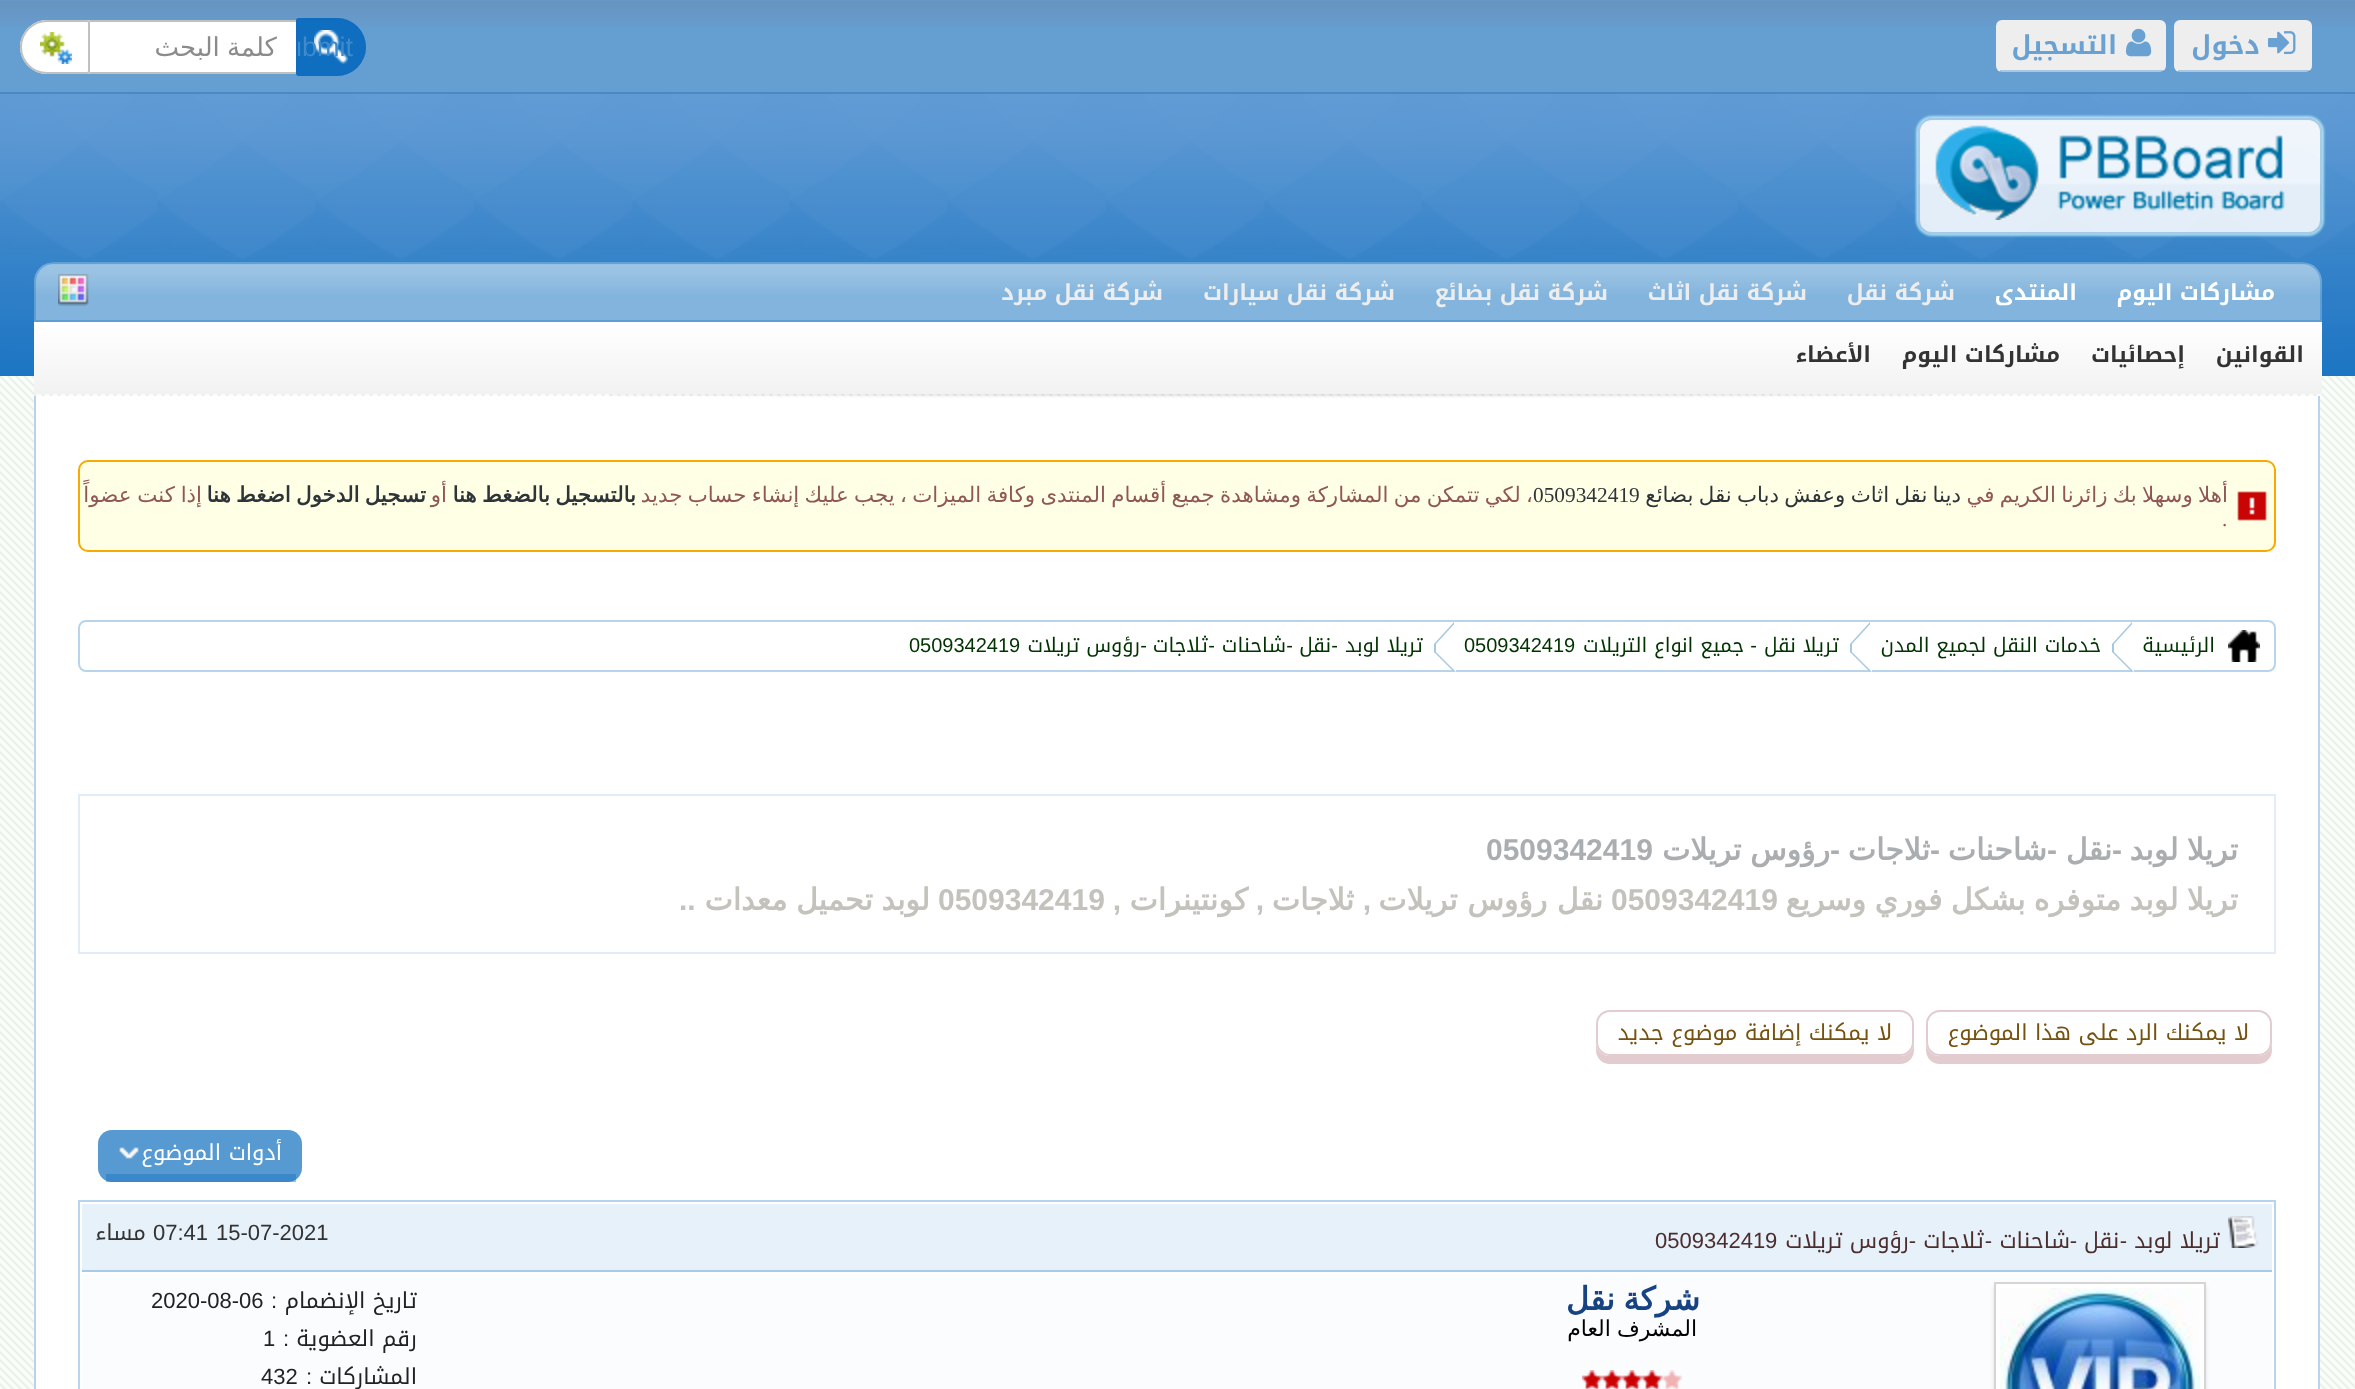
async function draw(canvas) {
	canvas.width = 2355;
	canvas.height = 1389;
	const c = canvas.getContext('2d');
	c.miterLimit = 4;
	c.fontKerning = 'normal';
	async function loadImage(src) {
		const img = new Image();
		img.src = src;
		await img.decode();
		return img;
	}
	let gradient;

	c.fillStyle = '#fff';
	c.fillRect(0, 0, 2355, 1389);
	c.drawImage(await loadImage('img1.png'), 0, 376, 2355, 1013);
	c.fillStyle = '#0f6ebf';
	c.fillRect(0, 0, 2355, 376);
	c.drawImage(await loadImage('img2.png'), 0, 0, 2355, 94);
	c.fillStyle = '#0f6ebf4d';
	c.fillRect(0, 92, 2355, 2);
	c.fillStyle = '#eee';
	c.beginPath();
	c.roundRect(2174, 20, 138, 52, 6);
	c.fill();
	c.fillStyle = '#0f6ebf4d';
	c.fillRect(2178, 70, 132, 2);
	c.drawImage(await loadImage('img3.png'), 2268, 31, 28, 23);
	c.direction = 'rtl';
	c.font = 'bold 26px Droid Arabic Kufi';
	c.fillStyle = '#68a1d2';
	c.fillText('دخول', 2260, 54);
	c.fillStyle = '#eee';
	c.beginPath();
	c.roundRect(1996, 20, 170, 52, 6);
	c.fill();
	c.fillStyle = '#0f6ebf4d';
	c.fillRect(2000, 70, 164, 2);
	c.drawImage(await loadImage('img4.png'), 2126, 28, 26, 29);
	c.fillStyle = '#68a1d2';
	c.fillText('التسجيل', 2117, 54);
	c.fillStyle = '#0f6ebf';
	c.beginPath();
	c.roundRect(296, 18, 70, 58, [3, 29, 29, 3]);
	c.fill();
	c.drawImage(await loadImage('img5.png'), 314, 30, 34, 34);
	c.beginPath();
	c.roundRect(297, 19, 68, 56, [2, 28, 28, 2]);
	c.strokeStyle = '#0f6ebf4d';
	c.lineWidth = 2;
	c.stroke();
	c.save();
	c.beginPath();
	c.roundRect(298, 20, 66, 54, [1, 27, 27, 1]);
	c.clip();
	c.direction = 'ltr';
	c.font = '27px Liberation Sans';
	c.fillStyle = '#3e8acb';
	c.fillText('ubmit', 287, 56);
	c.restore();
	for (const [x, y, w, h, color] of [
		[89, 22, 207, 50, '#fff'],
		[88, 20, 208, 2, '#c0c0c0'],
		[88, 72, 208, 2, '#c0c0c0'],
	]) {
		c.fillStyle = color;
		c.fillRect(x, y, w, h);
	}
	c.wordSpacing = '-1px';
	c.font = '26px DejaVu Sans';
	c.fillStyle = '#8b8b8b';
	c.fillText('كلمة البحث', 277, 56);
	c.fillStyle = '#fff';
	c.beginPath();
	c.roundRect(20, 20, 70, 54, [27, 3, 3, 27]);
	c.fill();
	c.drawImage(await loadImage('img6.png'), 40, 32, 32, 32);
	c.beginPath();
	c.roundRect(21, 21, 68, 52, [26, 2, 2, 26]);
	c.strokeStyle = '#c0c0c0';
	c.stroke();
	c.drawImage(await loadImage('img7.png'), 0, 94, 2355, 282);
	c.save();
	c.beginPath();
	c.moveTo(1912, 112);
	c.lineTo(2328, 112);
	c.lineTo(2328, 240);
	c.lineTo(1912, 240);
	c.closePath();
	c.moveTo(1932, 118);
	c.lineTo(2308, 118);
	c.bezierCurveTo(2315.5, 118, 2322, 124.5, 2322, 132);
	c.lineTo(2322, 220);
	c.bezierCurveTo(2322, 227.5, 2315.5, 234, 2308, 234);
	c.lineTo(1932, 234);
	c.bezierCurveTo(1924.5, 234, 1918, 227.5, 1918, 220);
	c.lineTo(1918, 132);
	c.bezierCurveTo(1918, 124.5, 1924.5, 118, 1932, 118);
	c.closePath();
	c.clip('evenodd');
	c.fillStyle = '#ccffffb3';
	c.filter = 'blur(1px)';
	c.beginPath();
	c.roundRect(1916, 116, 408, 120, 16);
	c.fill();
	c.filter = 'none';
	c.restore();
	c.drawImage(await loadImage('img8.png'), 1918, 118, 404, 116);
	c.beginPath();
	c.roundRect(1919, 119, 402, 114, 13);
	c.strokeStyle = '#0f6ebf4d';
	c.stroke();
	c.fillStyle = '#0f6ebfb3';
	c.beginPath();
	c.roundRect(34, 262, 2288, 60, [20, 20, 0, 0]);
	c.fill();
	c.drawImage(await loadImage('img9.png'), 34, 262, 2288, 60);
	c.beginPath();
	c.roundRect(35, 263, 2286, 58, [19, 19, 0, 0]);
	c.stroke();
	c.wordSpacing = '0px';
	c.font = 'bold 22px Droid Arabic Kufi';
	c.fillStyle = '#fff';
	c.fillText('مشاركات اليوم', 2275, 300);
	c.fillText('المنتدى', 2077, 300);
	c.fillStyle = '#ededed';
	for (const [text, x, y] of [
		['شركة نقل', 1955, 300],
		['شركة نقل اثاث', 1807, 300],
		['شركة نقل بضائع', 1608, 300],
		['شركة نقل سيارات', 1395, 300],
		['شركة نقل مبرد', 1163, 300],
	]) {
		c.fillText(text, x, y);
	}
	c.drawImage(await loadImage('img10.png'), 58, 274, 31, 32);
	gradient = c.createLinearGradient(1178, 322, 1178, 394);
	gradient.addColorStop(0, '#fff');
	gradient.addColorStop(1, '#f2f2f2');
	c.fillStyle = gradient;
	c.fillRect(34, 322, 2288, 72);
	c.fillStyle = '#333';
	for (const [text, x, y] of [
		['القوانين', 2304, 362],
		['إحصائيات', 2185, 362],
		['مشاركات اليوم', 2060, 362],
		['الأعضاء', 1871, 362],
	]) {
		c.fillText(text, x, y);
	}
	c.fillStyle = '#fff';
	c.fillRect(36, 396, 2282, 993);
	c.drawImage(await loadImage('img11.png'), 609, 394, 1324, 4);
	c.fillStyle = '#b7d4ec';
	c.beginPath();
	c.moveTo(2320, 396);
	c.lineTo(2320, 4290);
	c.lineTo(2318, 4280);
	c.lineTo(2318, 396);
	c.closePath();
	c.fill();
	c.beginPath();
	c.moveTo(34, 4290);
	c.lineTo(34, 396);
	c.lineTo(36, 396);
	c.lineTo(36, 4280);
	c.closePath();
	c.fill();
	c.fillStyle = '#ffffe6';
	c.beginPath();
	c.roundRect(78, 460, 2198, 92, 10);
	c.fill();
	c.drawImage(await loadImage('img12.png'), 2237, 491, 30, 30);
	c.beginPath();
	c.roundRect(79, 461, 2196, 90, 9);
	c.strokeStyle = '#f9aa00';
	c.stroke();
	c.wordSpacing = '-1.5px';
	c.font = '21.35px DejaVu Sans';
	c.fillStyle = '#905757';
	c.fillText('أهلا وسهلا بك زائرنا الكريم في', 2228, 502);
	c.fillStyle = '#2e3539';
	c.fillText('دينا نقل اثاث وعفش دباب نقل بضائع', 1961, 502);
	c.wordSpacing = '0px';
	c.direction = 'ltr';
	c.font = '21.35px Liberation Serif';
	c.fillText('0509342419', 1533, 502);
	c.wordSpacing = '-1.5px';
	c.direction = 'rtl';
	c.font = '21.35px DejaVu Sans';
	c.fillStyle = '#905757';
	c.fillText('، لكي تتمكن من المشاركة ومشاهدة جميع أقسام المنتدى وكافة الميزات ، يجب عليك إنشاء حساب جديد', 1533, 502);
	c.font = 'bold 21.35px DejaVu Sans';
	c.fillStyle = '#2e3539';
	c.fillText('بالتسجيل بالضغط هنا', 636, 502);
	c.wordSpacing = '0px';
	c.font = '21.35px DejaVu Sans';
	c.fillStyle = '#905757';
	c.fillText('أو', 447, 502);
	c.wordSpacing = '-1.5px';
	c.font = 'bold 21.35px DejaVu Sans';
	c.fillStyle = '#2e3539';
	c.fillText('تسجيل الدخول اضغط هنا', 426, 502);
	c.wordSpacing = '-1px';
	c.font = '21.35px DejaVu Sans';
	c.fillStyle = '#905757';
	c.fillText('إذا كنت عضواً', 202, 502);
	c.wordSpacing = '0px';
	c.direction = 'ltr';
	c.font = '21.35px Liberation Serif';
	c.fillText('.', 2222, 526);
	c.drawImage(await loadImage('img13.png'), 2228, 630, 32, 32);
	c.beginPath();
	c.roundRect(79, 621, 2196, 50, 7);
	c.strokeStyle = '#b7d4ec';
	c.stroke();
	c.direction = 'rtl';
	c.font = '20px Droid Arabic Kufi';
	c.fillStyle = '#030';
	c.fillText('الرئيسية', 2215, 652);
	c.fillStyle = '#a5c8e0';
	c.beginPath();
	c.moveTo(2132, 622);
	c.lineTo(2132, 672);
	c.lineTo(2112, 652);
	c.lineTo(2112, 644);
	c.closePath();
	c.fill();
	c.fillStyle = '#fff';
	c.beginPath();
	c.moveTo(2134, 622);
	c.lineTo(2134, 672);
	c.lineTo(2114, 652);
	c.lineTo(2114, 644);
	c.closePath();
	c.fill();
	c.fillStyle = '#030';
	c.fillText('خدمات النقل لجميع المدن', 2101, 652);
	c.fillStyle = '#a5c8e0';
	c.beginPath();
	c.moveTo(1870, 622);
	c.lineTo(1870, 672);
	c.lineTo(1850, 652);
	c.lineTo(1850, 644);
	c.closePath();
	c.fill();
	c.fillStyle = '#fff';
	c.beginPath();
	c.moveTo(1872, 622);
	c.lineTo(1872, 672);
	c.lineTo(1852, 652);
	c.lineTo(1852, 644);
	c.closePath();
	c.fill();
	c.fillStyle = '#030';
	c.fillText('تريلا نقل', 1839, 652);
	c.font = '20px Liberation Sans';
	c.fillText('-', 1757, 652);
	c.font = '20px Droid Arabic Kufi';
	c.fillText('جميع انواع التريلات', 1744, 652);
	c.direction = 'ltr';
	c.font = '20px Liberation Sans';
	c.fillText('0509342419', 1464, 652);
	c.fillStyle = '#a5c8e0';
	c.beginPath();
	c.moveTo(1454, 622);
	c.lineTo(1454, 672);
	c.lineTo(1434, 652);
	c.lineTo(1434, 644);
	c.closePath();
	c.fill();
	c.fillStyle = '#fff';
	c.beginPath();
	c.moveTo(1456, 622);
	c.lineTo(1456, 672);
	c.lineTo(1436, 652);
	c.lineTo(1436, 644);
	c.closePath();
	c.fill();
	c.direction = 'rtl';
	c.font = '20px Droid Arabic Kufi';
	c.fillStyle = '#030';
	c.fillText('تريلا لوبد', 1423, 652);
	c.font = '20px Liberation Sans';
	c.fillText('-', 1338, 652);
	c.font = '20px Droid Arabic Kufi';
	c.fillText('نقل', 1331, 652);
	c.font = '20px Liberation Sans';
	c.fillText('-', 1293, 652);
	c.font = '20px Droid Arabic Kufi';
	c.fillText('شاحنات', 1286, 652);
	c.font = '20px Liberation Sans';
	c.fillText('-', 1215, 652);
	c.font = '20px Droid Arabic Kufi';
	c.fillText('ثلاجات', 1208, 652);
	c.font = '20px Liberation Sans';
	c.fillText('-', 1147, 652);
	c.font = '20px Droid Arabic Kufi';
	c.fillText('رؤوس تريلات', 1140, 652);
	c.direction = 'ltr';
	c.font = '20px Liberation Sans';
	c.fillText('0509342419', 909, 652);
	c.strokeStyle = '#e1ecf6';
	c.strokeRect(79, 795, 2196, 158);
	c.wordSpacing = '-1px';
	c.direction = 'rtl';
	c.font = 'bold 30px DejaVu Sans';
	c.fillStyle = '#abaeb0';
	c.fillText('تريلا لوبد', 2238, 860);
	c.wordSpacing = '0px';
	c.font = 'bold 30px Liberation Sans';
	c.fillText('-', 2122, 860);
	c.font = 'bold 30px DejaVu Sans';
	c.fillText('نقل', 2112, 860);
	c.font = 'bold 30px Liberation Sans';
	c.fillText('-', 2057, 860);
	c.font = 'bold 30px DejaVu Sans';
	c.fillText('شاحنات', 2047, 860);
	c.font = 'bold 30px Liberation Sans';
	c.fillText('-', 1940, 860);
	c.font = 'bold 30px DejaVu Sans';
	c.fillText('ثلاجات', 1930, 860);
	c.font = 'bold 30px Liberation Sans';
	c.fillText('-', 1840, 860);
	c.wordSpacing = '-1px';
	c.font = 'bold 30px DejaVu Sans';
	c.fillText('رؤوس تريلات', 1830, 860);
	c.wordSpacing = '0px';
	c.direction = 'ltr';
	c.font = 'bold 30px Liberation Sans';
	c.fillText('0509342419', 1486, 860);
	c.wordSpacing = '-1px';
	c.direction = 'rtl';
	c.font = 'bold 30px DejaVu Sans';
	c.fillStyle = '#c3c2bc';
	c.fillText('تريلا لوبد متوفره بشكل فوري وسريع', 2238, 910);
	c.wordSpacing = '0px';
	c.direction = 'ltr';
	c.font = 'bold 30px Liberation Sans';
	c.fillText('0509342419', 1611, 910);
	c.direction = 'rtl';
	c.font = 'bold 30px DejaVu Sans';
	c.fillText('نقل رؤوس تريلات', 1603, 910);
	c.font = 'bold 30px Liberation Sans';
	c.fillText(',', 1371, 910);
	c.font = 'bold 30px DejaVu Sans';
	c.fillText('ثلاجات', 1354, 910);
	c.font = 'bold 30px Liberation Sans';
	c.fillText(',', 1264, 910);
	c.font = 'bold 30px DejaVu Sans';
	c.fillText('كونتينرات', 1248, 910);
	c.font = 'bold 30px Liberation Sans';
	c.fillText(',', 1121, 910);
	c.direction = 'ltr';
	c.fillText('0509342419', 938, 910);
	c.wordSpacing = '-1px';
	c.direction = 'rtl';
	c.font = 'bold 30px DejaVu Sans';
	c.fillText('لوبد تحميل معدات', 930, 910);
	c.wordSpacing = '0px';
	c.direction = 'ltr';
	c.font = 'bold 30px Liberation Sans';
	c.fillText('..', 679, 910);
	c.fillStyle = '#e2ccd0';
	c.beginPath();
	c.moveTo(1926, 1042);
	c.lineTo(1926, 1050);
	c.bezierCurveTo(1926, 1058, 1932, 1064, 1940, 1064);
	c.lineTo(2258, 1064);
	c.bezierCurveTo(2266, 1064, 2272, 1058, 2272, 1050);
	c.lineTo(2272, 1042);
	c.bezierCurveTo(2272, 1050, 2266, 1056, 2258, 1056);
	c.lineTo(1940, 1056);
	c.bezierCurveTo(1932, 1056, 1926, 1050, 1926, 1042);
	c.closePath();
	c.fill();
	c.fillStyle = '#fff';
	c.beginPath();
	c.roundRect(1927, 1011, 344, 44, 13);
	c.fill();
	c.strokeStyle = '#e2ccd0';
	c.stroke();
	c.direction = 'rtl';
	c.font = '22px Droid Arabic Kufi';
	c.fillStyle = '#75520f';
	c.fillText('لا يمكنك الرد على هذا الموضوع', 2249, 1040);
	c.fillStyle = '#e2ccd0';
	c.beginPath();
	c.moveTo(1596, 1042);
	c.lineTo(1596, 1050);
	c.bezierCurveTo(1596, 1058, 1602, 1064, 1610, 1064);
	c.lineTo(1900, 1064);
	c.bezierCurveTo(1908, 1064, 1914, 1058, 1914, 1050);
	c.lineTo(1914, 1042);
	c.bezierCurveTo(1914, 1050, 1908, 1056, 1900, 1056);
	c.lineTo(1610, 1056);
	c.bezierCurveTo(1602, 1056, 1596, 1050, 1596, 1042);
	c.closePath();
	c.fill();
	c.fillStyle = '#fff';
	c.beginPath();
	c.roundRect(1597, 1011, 316, 44, 13);
	c.fill();
	c.stroke();
	c.fillStyle = '#75520f';
	c.fillText('لا يمكنك إضافة موضوع جديد', 1892, 1040);
	c.fillStyle = '#579ad2';
	c.beginPath();
	c.roundRect(98, 1130, 204, 52, 14);
	c.fill();
	c.fillStyle = '#0f6ebf66';
	c.fillRect(106, 1174, 190, 8);
	c.fillStyle = '#fff';
	c.fillText('أدوات الموضوع', 282, 1160);
	c.drawImage(await loadImage('img14.png'), 119, 1147, 20, 12);
	c.strokeStyle = '#b7d4ec';
	c.strokeRect(79, 1201, 2196, 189);
	c.fillStyle = '#e7f1f9';
	c.fillRect(82, 1204, 2190, 66);
	c.fillStyle = '#a6cae8';
	c.fillRect(82, 1270, 2190, 2);
	c.drawImage(await loadImage('img15.png'), 2228, 1216, 31, 32);
	c.fillStyle = '#4c2e2e';
	c.fillText('تريلا لوبد', 2220, 1248);
	c.font = '22px Liberation Sans';
	c.fillText('-', 2127, 1248);
	c.font = '22px Droid Arabic Kufi';
	c.fillText('نقل', 2119, 1248);
	c.font = '22px Liberation Sans';
	c.fillText('-', 2077, 1248);
	c.font = '22px Droid Arabic Kufi';
	c.fillText('شاحنات', 2070, 1248);
	c.font = '22px Liberation Sans';
	c.fillText('-', 1992, 1248);
	c.font = '22px Droid Arabic Kufi';
	c.fillText('ثلاجات', 1984, 1248);
	c.font = '22px Liberation Sans';
	c.fillText('-', 1916, 1248);
	c.font = '22px Droid Arabic Kufi';
	c.fillText('رؤوس تريلات', 1909, 1248);
	c.direction = 'ltr';
	c.font = '22px Liberation Sans';
	c.fillText('0509342419', 1655, 1248);
	c.fillStyle = '#333';
	c.fillText('15-07-2021', 216, 1240);
	c.fillText('07:41', 153, 1240);
	c.direction = 'rtl';
	c.font = '22px Droid Arabic Kufi';
	c.fillText('مساء', 146, 1240);
	c.fillStyle = '#fafcfe';
	c.fillRect(82, 1274, 2190, 115);
	c.fillStyle = '#0000001a';
	c.filter = 'blur(2px)';
	c.beginPath();
	c.rect(1994, 1286, 212, 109);
	c.fill();
	c.filter = 'none';
	c.fillStyle = '#fff';
	c.beginPath();
	c.rect(1995, 1283, 210, 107);
	c.fill();
	c.strokeStyle = '#d5d5d5';
	c.stroke();
	c.drawImage(await loadImage('img16.png'), 2000, 1288, 200, 101);
	c.wordSpacing = '-2px';
	c.font = 'bold 32px DejaVu Sans';
	c.fillStyle = '#184383';
	c.fillText('شركة نقل', 1700, 1310);
	c.wordSpacing = '-1px';
	c.font = '22px DejaVu Sans';
	c.fillStyle = '#000';
	c.fillText('المشرف العام', 1697, 1336);
	c.drawImage(await loadImage('img17.png'), 1582, 1370, 100, 19);
	c.wordSpacing = '0px';
	c.font = '22px Droid Arabic Kufi';
	c.fillStyle = '#222';
	c.fillText('تاريخ الإنضمام', 417, 1308);
	c.font = '22px Liberation Sans';
	c.fillText(':', 277, 1308);
	c.direction = 'ltr';
	c.fillText('2020-08-06', 151, 1308);
	c.direction = 'rtl';
	c.font = '22px Droid Arabic Kufi';
	c.fillText('رقم العضوية', 417, 1346);
	c.font = '22px Liberation Sans';
	c.fillText(':', 289, 1346);
	c.direction = 'ltr';
	c.fillText('1', 263, 1346);
	c.direction = 'rtl';
	c.font = '22px Droid Arabic Kufi';
	c.fillText('المشاركات', 417, 1384);
	c.font = '22px Liberation Sans';
	c.fillText(':', 312, 1384);
	c.direction = 'ltr';
	c.fillText('432', 261, 1384);
}

draw(document.querySelector('canvas'));
